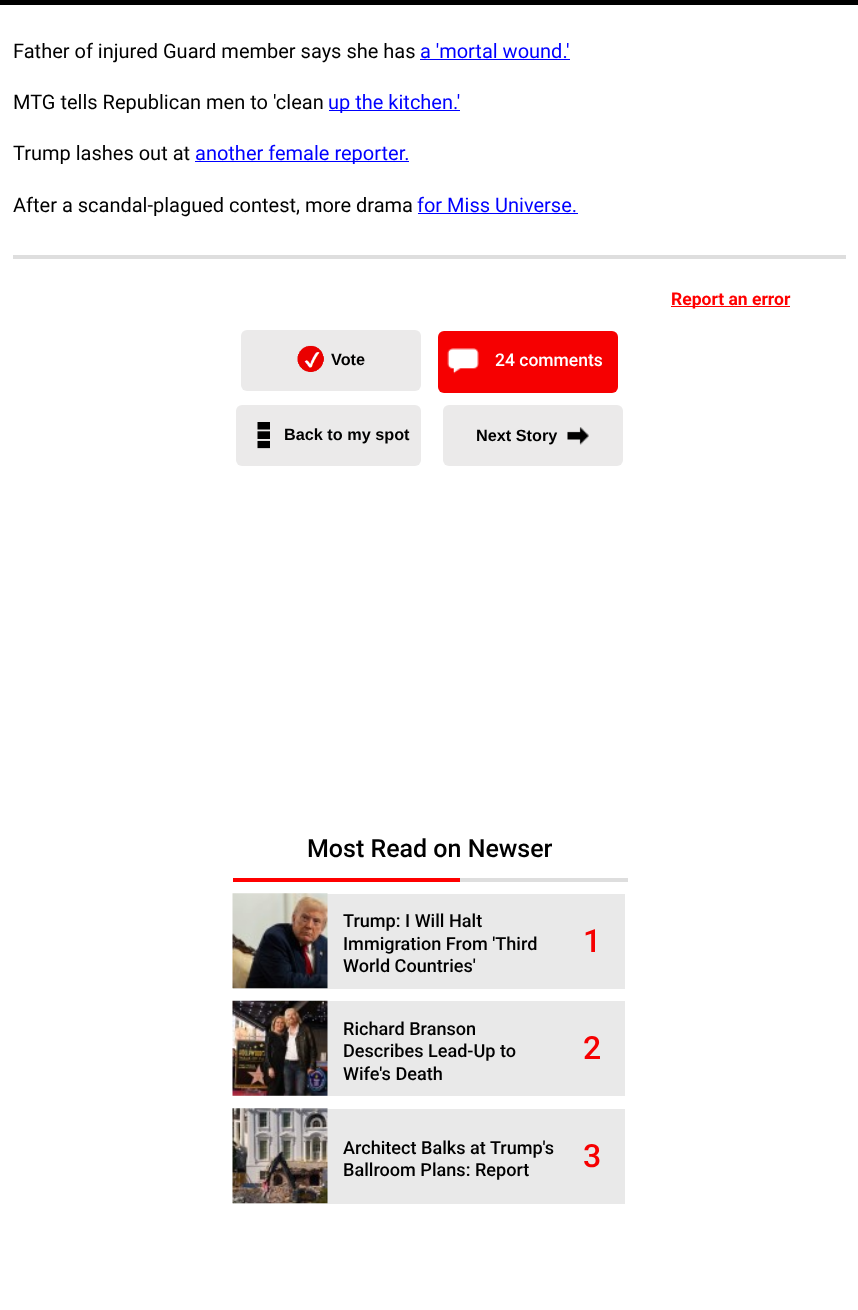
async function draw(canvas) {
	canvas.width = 858;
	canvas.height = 1310;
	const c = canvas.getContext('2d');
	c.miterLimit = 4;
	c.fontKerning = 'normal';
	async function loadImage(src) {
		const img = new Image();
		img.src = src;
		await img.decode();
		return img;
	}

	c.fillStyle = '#fff';
	c.fillRect(0, 0, 858, 1310);
	c.fillStyle = '#000';
	c.fillRect(0, 0, 858, 5);
	c.font = '20px Roboto';
	c.fillText('Father of injured Guard member says she has', 13, 58);
	c.fillStyle = '#00f';
	c.fillText('a \'mortal wound.\'', 420, 58);
	c.fillRect(420, 59, 150, 1);
	c.fillStyle = '#000';
	c.fillText('MTG tells Republican men to \'clean', 13, 109);
	c.fillStyle = '#00f';
	c.fillRect(329, 110, 131, 1);
	c.fillText('up the kitchen.\'', 328, 109);
	c.fillStyle = '#000';
	c.fillText('Trump lashes out at', 13, 160);
	c.fillStyle = '#00f';
	c.fillRect(195, 161, 214, 1);
	c.fillText('another female reporter.', 195, 160);
	c.fillStyle = '#000';
	c.fillText('After a scandal-plagued contest, more drama', 13, 212);
	c.fillStyle = '#00f';
	c.fillText('for Miss Universe.', 417, 212);
	for (const [x, y, w, h, color] of [
		[418, 213, 160, 1, '#00f'],
		[13, 255, 833, 4, '#dedede'],
		[671, 306, 119, 1, '#f00'],
	]) {
		c.fillStyle = color;
		c.fillRect(x, y, w, h);
	}
	c.font = 'bold 17.5px Roboto';
	c.fillText('Report an error', 671, 305);
	c.fillStyle = '#ebeaea';
	c.beginPath();
	c.roundRect(241, 330, 180, 61, 6);
	c.fill();
	c.drawImage(await loadImage('img1.png'), 297, 345, 27, 27);
	c.font = 'bold 16.25px Liberation Sans';
	c.fillStyle = '#000';
	c.fillText('Vote', 331, 365);
	c.fillStyle = '#f60001';
	c.beginPath();
	c.roundRect(438, 331, 180, 62, 6);
	c.fill();
	c.drawImage(await loadImage('img2.png'), 447, 348, 32, 26);
	c.font = '500 17.5px Roboto';
	c.fillStyle = '#fff';
	c.fillText('24 comments', 495, 366);
	c.fillStyle = '#ebeaea';
	c.beginPath();
	c.roundRect(236, 405, 185, 61, 6);
	c.fill();
	c.drawImage(await loadImage('img3.png'), 257, 422, 13, 27);
	c.font = 'bold 16.25px Liberation Sans';
	c.fillStyle = '#000';
	c.fillText('Back to my spot', 284, 440);
	c.fillStyle = '#ebeaea';
	c.beginPath();
	c.roundRect(443, 405, 180, 61, 6);
	c.fill();
	c.fillStyle = '#000';
	c.fillText('Next Story', 476, 441);
	c.drawImage(await loadImage('img4.png'), 567, 427, 22, 18);
	c.font = '500 25px Roboto';
	c.fillText('Most Read on Newser', 307, 857);
	for (const [x, y, w, h, color] of [
		[233, 878, 227, 4, '#f00'],
		[460, 878, 168, 4, '#dedede'],
		[233, 894, 392, 95, '#e9e9e9'],
	]) {
		c.fillStyle = color;
		c.fillRect(x, y, w, h);
	}
	c.drawImage(await loadImage('img5.png'), 232, 893, 96, 96);
	c.font = '500 18.1px Roboto';
	c.fillStyle = '#000';
	for (const [text, x, y] of [
		['Trump: I Will Halt', 343, 927],
		['Immigration From \'Third', 343, 950],
		['World Countries\'', 343, 972],
	]) {
		c.fillText(text, x, y);
	}
	c.font = '500 32px Roboto';
	c.fillStyle = '#f60001';
	c.fillText('1', 583, 952);
	c.fillStyle = '#e9e9e9';
	c.fillRect(233, 1001, 392, 95);
	c.drawImage(await loadImage('img6.png'), 232, 1000, 96, 96);
	c.font = '500 18.1px Roboto';
	c.fillStyle = '#000';
	for (const [text, x, y] of [
		['Richard Branson', 343, 1035],
		['Describes Lead-Up to', 343, 1057],
		['Wife\'s Death', 343, 1080],
	]) {
		c.fillText(text, x, y);
	}
	c.font = '500 32px Roboto';
	c.fillStyle = '#f60001';
	c.fillText('2', 583, 1059);
	c.fillStyle = '#e9e9e9';
	c.fillRect(233, 1109, 392, 95);
	c.drawImage(await loadImage('img7.png'), 232, 1108, 96, 96);
	c.font = '500 18.1px Roboto';
	c.fillStyle = '#000';
	c.fillText('Architect Balks at Trump\'s', 343, 1154);
	c.fillText('Ballroom Plans: Report', 343, 1176);
	c.font = '500 32px Roboto';
	c.fillStyle = '#f60001';
	c.fillText('3', 583, 1167);
}

draw(document.querySelector('canvas'));
